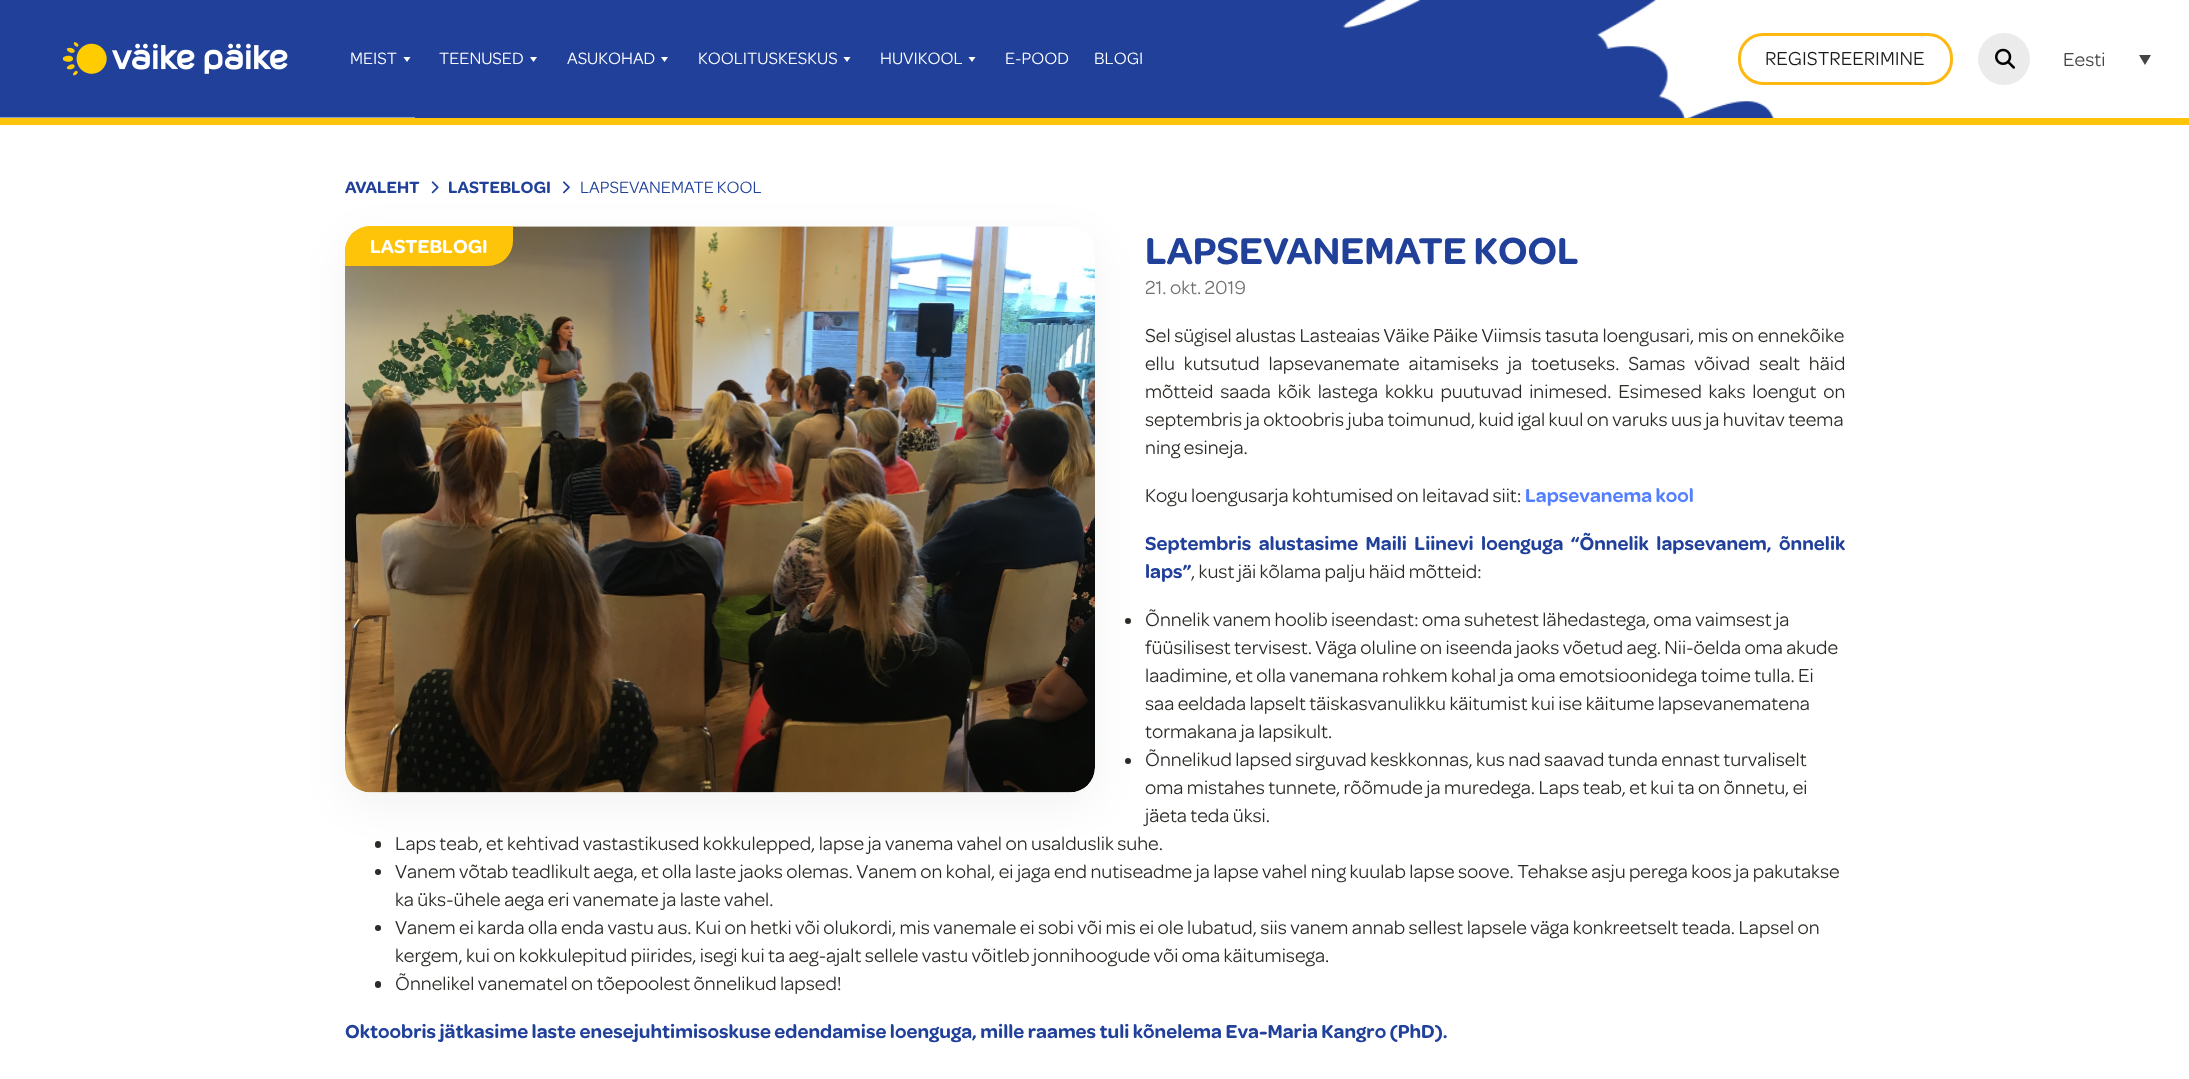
async function draw(canvas) {
	canvas.width = 2189;
	canvas.height = 1079;
	const c = canvas.getContext('2d');
	c.miterLimit = 4;
	c.fontKerning = 'normal';
	async function loadImage(src) {
		const img = new Image();
		img.src = src;
		await img.decode();
		return img;
	}

	c.fillStyle = '#fff';
	c.fillRect(0, 0, 2189, 1079);
	c.drawImage(await loadImage('img1.png'), 0, 0, 1776, 118);
	c.fillStyle = '#fec40a';
	c.fillRect(0, 118, 2189, 7);
	c.drawImage(await loadImage('img2.png'), 63, 42, 225, 34);
	c.font = '17.5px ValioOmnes';
	c.fillStyle = '#fff';
	c.fillText('MEIST', 350, 64);
	c.beginPath();
	c.moveTo(410.5, 57);
	c.lineTo(407, 62);
	c.lineTo(403.5, 57);
	c.closePath();
	c.fill();
	c.fillText('TEENUSED', 439, 64);
	c.beginPath();
	c.moveTo(537, 57);
	c.lineTo(533.5, 62);
	c.lineTo(530, 57);
	c.closePath();
	c.fill();
	c.fillText('ASUKOHAD', 567, 64);
	c.beginPath();
	c.moveTo(668, 57);
	c.lineTo(664.5, 62);
	c.lineTo(661, 57);
	c.closePath();
	c.fill();
	c.fillText('KOOLITUSKESKUS', 698, 64);
	c.beginPath();
	c.moveTo(850.5, 57);
	c.lineTo(847, 62);
	c.lineTo(843.5, 57);
	c.closePath();
	c.fill();
	c.fillText('HUVIKOOL', 880, 64);
	c.beginPath();
	c.moveTo(975.5, 57);
	c.lineTo(972, 62);
	c.lineTo(968.5, 57);
	c.closePath();
	c.fill();
	c.fillText('E-POOD', 1005, 64);
	c.fillText('BLOGI', 1094, 64);
	c.beginPath();
	c.roundRect(1739.5, 34.5, 212, 49, 23.5);
	c.strokeStyle = '#fdb811';
	c.lineWidth = 3;
	c.stroke();
	c.font = '20px ValioOmnes';
	c.fillStyle = '#1a1a1a';
	c.fillText('REGISTREERIMINE', 1765, 65);
	c.fillStyle = '#ebebeb';
	c.beginPath();
	c.arc(2004, 59, 26, 0, 2 * Math.PI);
	c.fill();
	c.drawImage(await loadImage('img3.png'), 1995, 48, 20, 21);
	c.fillStyle = '#444';
	c.fillText('Eesti', 2063, 66);
	c.beginPath();
	c.moveTo(2139, 55);
	c.lineTo(2151, 55);
	c.lineTo(2145, 65);
	c.closePath();
	c.fill();
	c.font = '600 17.5px ValioOmnes';
	c.fillStyle = '#20409a';
	c.fillText('AVALEHT', 345, 193);
	c.drawImage(await loadImage('img4.png'), 431, 181, 8, 13);
	c.fillText('LASTEBLOGI', 448, 193);
	c.drawImage(await loadImage('img5.png'), 563, 181, 7, 13);
	c.font = '17.5px ValioOmnes';
	c.fillText('LAPSEVANEMATE KOOL', 580, 193);
	c.fillStyle = '#2d2b27';
	c.beginPath();
	c.arc(1128, 621, 3, 0, 2 * Math.PI);
	c.fill();
	c.beginPath();
	c.arc(1128, 761, 3, 0, 2 * Math.PI);
	c.fill();
	c.beginPath();
	c.roundRect(375, 841, 6, 7, 3);
	c.fill();
	c.beginPath();
	c.arc(378, 872, 3, 0, 2 * Math.PI);
	c.fill();
	c.fillStyle = '#0000000d';
	c.filter = 'blur(22px)';
	c.beginPath();
	c.roundRect(345, 239, 750, 566, 25);
	c.fill();
	c.filter = 'none';
	c.drawImage(await loadImage('img6.png'), 345, 226, 750, 567);
	c.fillStyle = '#fec40a';
	c.beginPath();
	c.roundRect(345, 226, 168, 40, [25, 0, 25, 0]);
	c.fill();
	c.font = '600 20px ValioOmnes';
	c.fillStyle = '#fff';
	c.fillText('LASTEBLOGI', 370, 253);
	c.font = '600 40px ValioOmnes';
	c.fillStyle = '#20409a';
	c.fillText('LAPSEVANEMATE KOOL', 1145, 264);
	c.font = '20px ValioOmnes';
	c.fillStyle = '#727272';
	c.fillText('21. okt. 2019', 1145, 294);
	c.wordSpacing = '0.25px';
	c.fillStyle = '#2d2b27';
	c.fillText('Sel sügisel alustas Lasteaias Väike Päike Viimsis tasuta loengusari, mis on ennekõike', 1145, 342);
	c.wordSpacing = '5.5px';
	c.fillText('ellu kutsutud lapsevanemate aitamiseks ja toetuseks. Samas võivad sealt häid', 1145, 370);
	c.wordSpacing = '3.4px';
	c.fillText('mõtteid saada kõik lastega kokku puutuvad inimesed. Esimesed kaks loengut on', 1145, 398);
	c.wordSpacing = '0px';
	for (const [text, x, y] of [
		['septembris ja oktoobris juba toimunud, kuid igal kuul on varuks uus ja huvitav teema', 1145, 426],
		['ning esineja.', 1145, 454],
		['Kogu loengusarja kohtumised on leitavad siit:', 1145, 502],
	]) {
		c.fillText(text, x, y);
	}
	c.font = '600 20px ValioOmnes';
	c.fillStyle = '#547fff';
	c.fillText('Lapsevanema kool', 1525, 502);
	c.wordSpacing = '4px';
	c.fillStyle = '#20409a';
	c.fillText('Septembris alustasime Maili Liinevi loenguga “Õnnelik lapsevanem, õnnelik', 1145, 550);
	c.wordSpacing = '0px';
	c.fillText('laps”', 1145, 578);
	c.font = '20px ValioOmnes';
	c.fillStyle = '#2d2b27';
	for (const [text, x, y] of [
		[', kust jäi kõlama palju häid mõtteid:', 1191, 578],
		['Õnnelik vanem hoolib iseendast: oma suhetest lähedastega, oma vaimsest ja', 1145, 626],
		['füüsilisest tervisest. Väga oluline on iseenda jaoks võetud aeg. Nii-öelda oma akude', 1145, 654],
		['laadimine, et olla vanemana rohkem kohal ja oma emotsioonidega toime tulla. Ei', 1145, 682],
		['saa eeldada lapselt täiskasvanulikku käitumist kui ise käitume lapsevanematena', 1145, 710],
		['tormakana ja lapsikult.', 1145, 738],
		['Õnnelikud lapsed sirguvad keskkonnas, kus nad saavad tunda ennast turvaliselt', 1145, 766],
		['oma mistahes tunnete, rõõmude ja muredega. Laps teab, et kui ta on õnnetu, ei', 1145, 794],
		['jäeta teda üksi.', 1145, 822],
		['Laps teab, et kehtivad vastastikused kokkulepped, lapse ja vanema vahel on usalduslik suhe.', 395, 850],
		['Vanem võtab teadlikult aega, et olla laste jaoks olemas. Vanem on kohal, ei jaga end nutiseadme ja lapse vahel ning kuulab lapse soove. Tehakse asju perega koos ja pakutakse', 395, 878],
		['ka üks-ühele aega eri vanemate ja laste vahel.', 395, 906],
	]) {
		c.fillText(text, x, y);
	}
	c.beginPath();
	c.arc(378, 928, 3, 0, 2 * Math.PI);
	c.fill();
	c.fillText('Vanem ei karda olla enda vastu aus. Kui on hetki või olukordi, mis vanemale ei sobi või mis ei ole lubatud, siis vanem annab sellest lapsele väga konkreetselt teada. Lapsel on', 395, 934);
	c.fillText('kergem, kui on kokkulepitud piirides, isegi kui ta aeg-ajalt sellele vastu võitleb jonnihoogude või oma käitumisega.', 395, 962);
	c.beginPath();
	c.roundRect(375, 981, 6, 7, 3);
	c.fill();
	c.fillText('Õnnelikel vanematel on tõepoolest õnnelikud lapsed!', 395, 990);
	c.font = '600 20px ValioOmnes';
	c.fillStyle = '#20409a';
	c.fillText('Oktoobris jätkasime laste enesejuhtimisoskuse edendamise loenguga, mille raames tuli kõnelema Eva-Maria Kangro (PhD).', 345, 1038);
}

draw(document.querySelector('canvas'));
